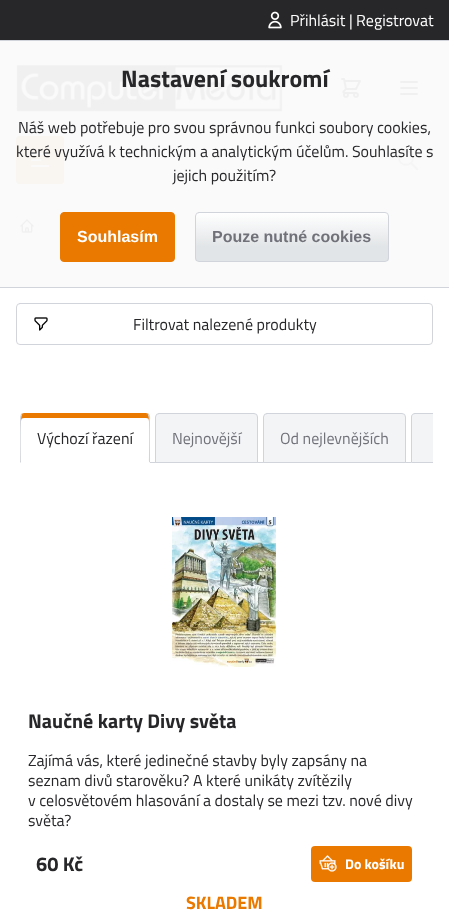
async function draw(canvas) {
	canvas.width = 449;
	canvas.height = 917;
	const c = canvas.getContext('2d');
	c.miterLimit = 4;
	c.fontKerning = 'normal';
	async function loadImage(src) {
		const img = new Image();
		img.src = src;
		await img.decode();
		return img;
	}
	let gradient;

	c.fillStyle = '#fafafa';
	c.fillRect(0, 0, 449, 917);
	c.fillStyle = '#27272a';
	c.fillRect(0, 0, 449, 40);
	c.drawImage(await loadImage('img1.png'), 268, 11, 14, 18);
	c.font = '16px Titillium Web';
	c.fillStyle = '#fff';
	c.fillText('Přihlásit | Registrovat', 290, 26);
	c.drawImage(await loadImage('img2.png'), 16, 64, 267, 48);
	c.drawImage(await loadImage('img3.png'), 341, 78, 20, 20);
	c.beginPath();
	c.moveTo(401, 82);
	c.lineTo(417, 82);
	c.moveTo(401, 88);
	c.lineTo(417, 88);
	c.moveTo(401, 94);
	c.lineTo(417, 94);
	c.strokeStyle = '#f0f0f0';
	c.lineWidth = 2;
	c.lineCap = 'round';
	c.lineJoin = 'round';
	c.stroke();
	c.fillStyle = '#f9f5f0';
	c.beginPath();
	c.roundRect(16, 136, 48, 48, 4);
	c.fill();
	c.beginPath();
	c.moveTo(32, 154);
	c.lineTo(48, 154);
	c.moveTo(32, 160);
	c.lineTo(40, 160);
	c.moveTo(32, 166);
	c.lineTo(48, 166);
	c.strokeStyle = '#fafafa';
	c.stroke();
	c.beginPath();
	c.moveTo(417, 169);
	c.lineTo(411, 163);
	c.moveTo(413, 158);
	c.bezierCurveTo(413, 167, 399, 167, 399, 158);
	c.bezierCurveTo(399, 149, 413, 149, 413, 158);
	c.closePath();
	c.strokeStyle = '#f5f5f5';
	c.stroke();
	c.fillStyle = '#d1d5db';
	c.fillRect(0, 40, 449, 1);
	c.fillRect(0, 287, 449, 1);
	c.font = 'bold 24px Titillium Web';
	c.fillStyle = '#27272a';
	c.fillText('Nastavení soukromí', 121, 87);
	c.font = '16px Titillium Web';
	for (const [text, x, y] of [
		['Náš web potřebuje pro svou správnou funkci soubory cookies,', 18, 133],
		['které využívá k technickým a analytickým účelům. Souhlasíte s', 16, 157],
		['jejich použitím?', 173, 181],
	]) {
		c.fillText(text, x, y);
	}
	c.fillStyle = '#ea7900';
	c.beginPath();
	c.roundRect(60.5, 212.5, 114, 49, 3.5);
	c.fill();
	c.strokeStyle = '#ea7900';
	c.lineWidth = 1;
	c.lineJoin = 'miter';
	c.stroke();
	c.font = 'bold 16px Liberation Sans';
	c.fillStyle = '#fff';
	c.fillText('Souhlasím', 77, 242);
	c.save();
	c.beginPath();
	c.roundRect(195, 212, 194, 50, 4);
	c.clip();
	gradient = c.createLinearGradient(292, 213, 292, 261);
	gradient.addColorStop(0, '#fff');
	gradient.addColorStop(0.7, '#e2e5e7');
	c.fillStyle = gradient;
	c.fillRect(195, 213, 194, 48);
	c.restore();
	c.beginPath();
	c.roundRect(195.5, 212.5, 193, 49, 3.5);
	c.strokeStyle = '#d1d5db';
	c.stroke();
	c.fillStyle = '#71717a';
	c.fillText('Pouze nutné cookies', 212, 242);
	c.fillStyle = '#fff';
	c.fillRect(0, 288, 449, 629);
	c.drawImage(await loadImage('img4.png'), 20, 219, 14, 14);
	c.drawImage(await loadImage('img5.png'), 34, 317, 14, 14);
	c.beginPath();
	c.roundRect(16.5, 303.5, 416, 41, 3.5);
	c.stroke();
	c.font = '16px Titillium Web';
	c.fillStyle = '#27272a';
	c.fillText('Filtrovat nalezené produkty', 133, 330);
	c.fillStyle = '#d1d5db';
	c.fillRect(150, 462, 261, 1);
	c.fillStyle = '#ea7900';
	c.beginPath();
	c.moveTo(24, 418);
	c.lineTo(146, 418);
	c.bezierCurveTo(148, 418, 149, 419, 149, 421);
	c.lineTo(149, 417);
	c.bezierCurveTo(149, 415, 148, 414, 146, 414);
	c.lineTo(24, 414);
	c.bezierCurveTo(22, 414, 21, 415, 21, 417);
	c.lineTo(21, 421);
	c.bezierCurveTo(21, 419, 22, 418, 24, 418);
	c.closePath();
	c.fill();
	c.beginPath();
	c.moveTo(24, 413);
	c.lineTo(21, 414);
	c.lineTo(22, 415);
	c.lineTo(24, 414);
	c.lineTo(146, 414);
	c.lineTo(148, 415);
	c.lineTo(149, 414);
	c.lineTo(146, 413);
	c.closePath();
	c.fill();
	c.fillStyle = '#d1d5db';
	c.beginPath();
	c.moveTo(150, 463);
	c.lineTo(150, 417);
	c.bezierCurveTo(150, 416, 150, 415, 149, 414);
	c.lineTo(148, 415);
	c.bezierCurveTo(150, 417, 149, 456, 149, 462);
	c.closePath();
	c.fill();
	c.fillStyle = '#fff';
	c.beginPath();
	c.moveTo(150, 463);
	c.lineTo(149, 462);
	c.lineTo(21, 462);
	c.lineTo(20, 463);
	c.closePath();
	c.fill();
	c.fillStyle = '#d1d5db';
	c.beginPath();
	c.moveTo(20, 463);
	c.lineTo(21, 462);
	c.bezierCurveTo(21, 456, 20, 417, 22, 415);
	c.lineTo(21, 414);
	c.lineTo(20, 417);
	c.closePath();
	c.fill();
	c.fillStyle = '#27272a';
	c.fillText('Výchozí řazení', 37, 444);
	c.fillStyle = '#f3f4f6';
	c.beginPath();
	c.roundRect(155.5, 413.5, 102, 49, [3.5, 3.5, 0, 0]);
	c.fill();
	c.stroke();
	c.fillStyle = '#71717a';
	c.fillText('Nejnovější', 172, 444);
	c.fillStyle = '#f3f4f6';
	c.beginPath();
	c.roundRect(263.5, 413.5, 142, 49, [3.5, 3.5, 0, 0]);
	c.fill();
	c.stroke();
	c.fillStyle = '#71717a';
	c.fillText('Od nejlevnějších', 280, 444);
	c.fillStyle = '#f3f4f6';
	c.beginPath();
	c.roundRect(411, 413, 22, 50, [4, 0, 0, 0]);
	c.fill();
	c.save();
	c.beginPath();
	c.rect(16, 409, 417, 64);
	c.clip();
	c.beginPath();
	c.moveTo(415, 413.5);
	c.lineTo(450, 413.5);
	c.bezierCurveTo(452, 413.5, 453.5, 415, 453.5, 417);
	c.lineTo(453.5, 462.5);
	c.lineTo(411.5, 462.5);
	c.lineTo(411.5, 417);
	c.bezierCurveTo(411.5, 415, 413, 413.5, 415, 413.5);
	c.closePath();
	c.stroke();
	c.restore();
	c.drawImage(await loadImage('img6.png'), 172, 517, 104, 150);
	c.font = 'bold 20px Titillium Web';
	c.fillStyle = '#27272a';
	c.fillText('Naučné karty Divy světa', 28, 728);
	c.font = '16px Titillium Web';
	for (const [text, x, y] of [
		['Zajímá vás, které jedinečné stavby byly zapsány na', 28, 766],
		['seznam divů starověku? A které unikáty zvítězily', 28, 786],
		['v celosvětovém hlasování a dostaly se mezi tzv. nové divy', 28, 806],
		['světa?', 28, 826],
	]) {
		c.fillText(text, x, y);
	}
	c.font = 'bold 20px Titillium Web';
	c.fillText('60 Kč', 36, 871);
	c.fillStyle = '#ea7900';
	c.beginPath();
	c.roundRect(311, 846, 101, 36, 4);
	c.fill();
	c.drawImage(await loadImage('img7.png'), 319, 855, 18, 17);
	c.font = 'bold 14px Titillium Web';
	c.fillStyle = '#fff';
	c.fillText('Do košíku', 345, 869);
	c.font = 'bold 18px Titillium Web';
	c.fillStyle = '#ea7900';
	c.fillText('SKLADEM', 186, 909);
}

draw(document.querySelector('canvas'));
